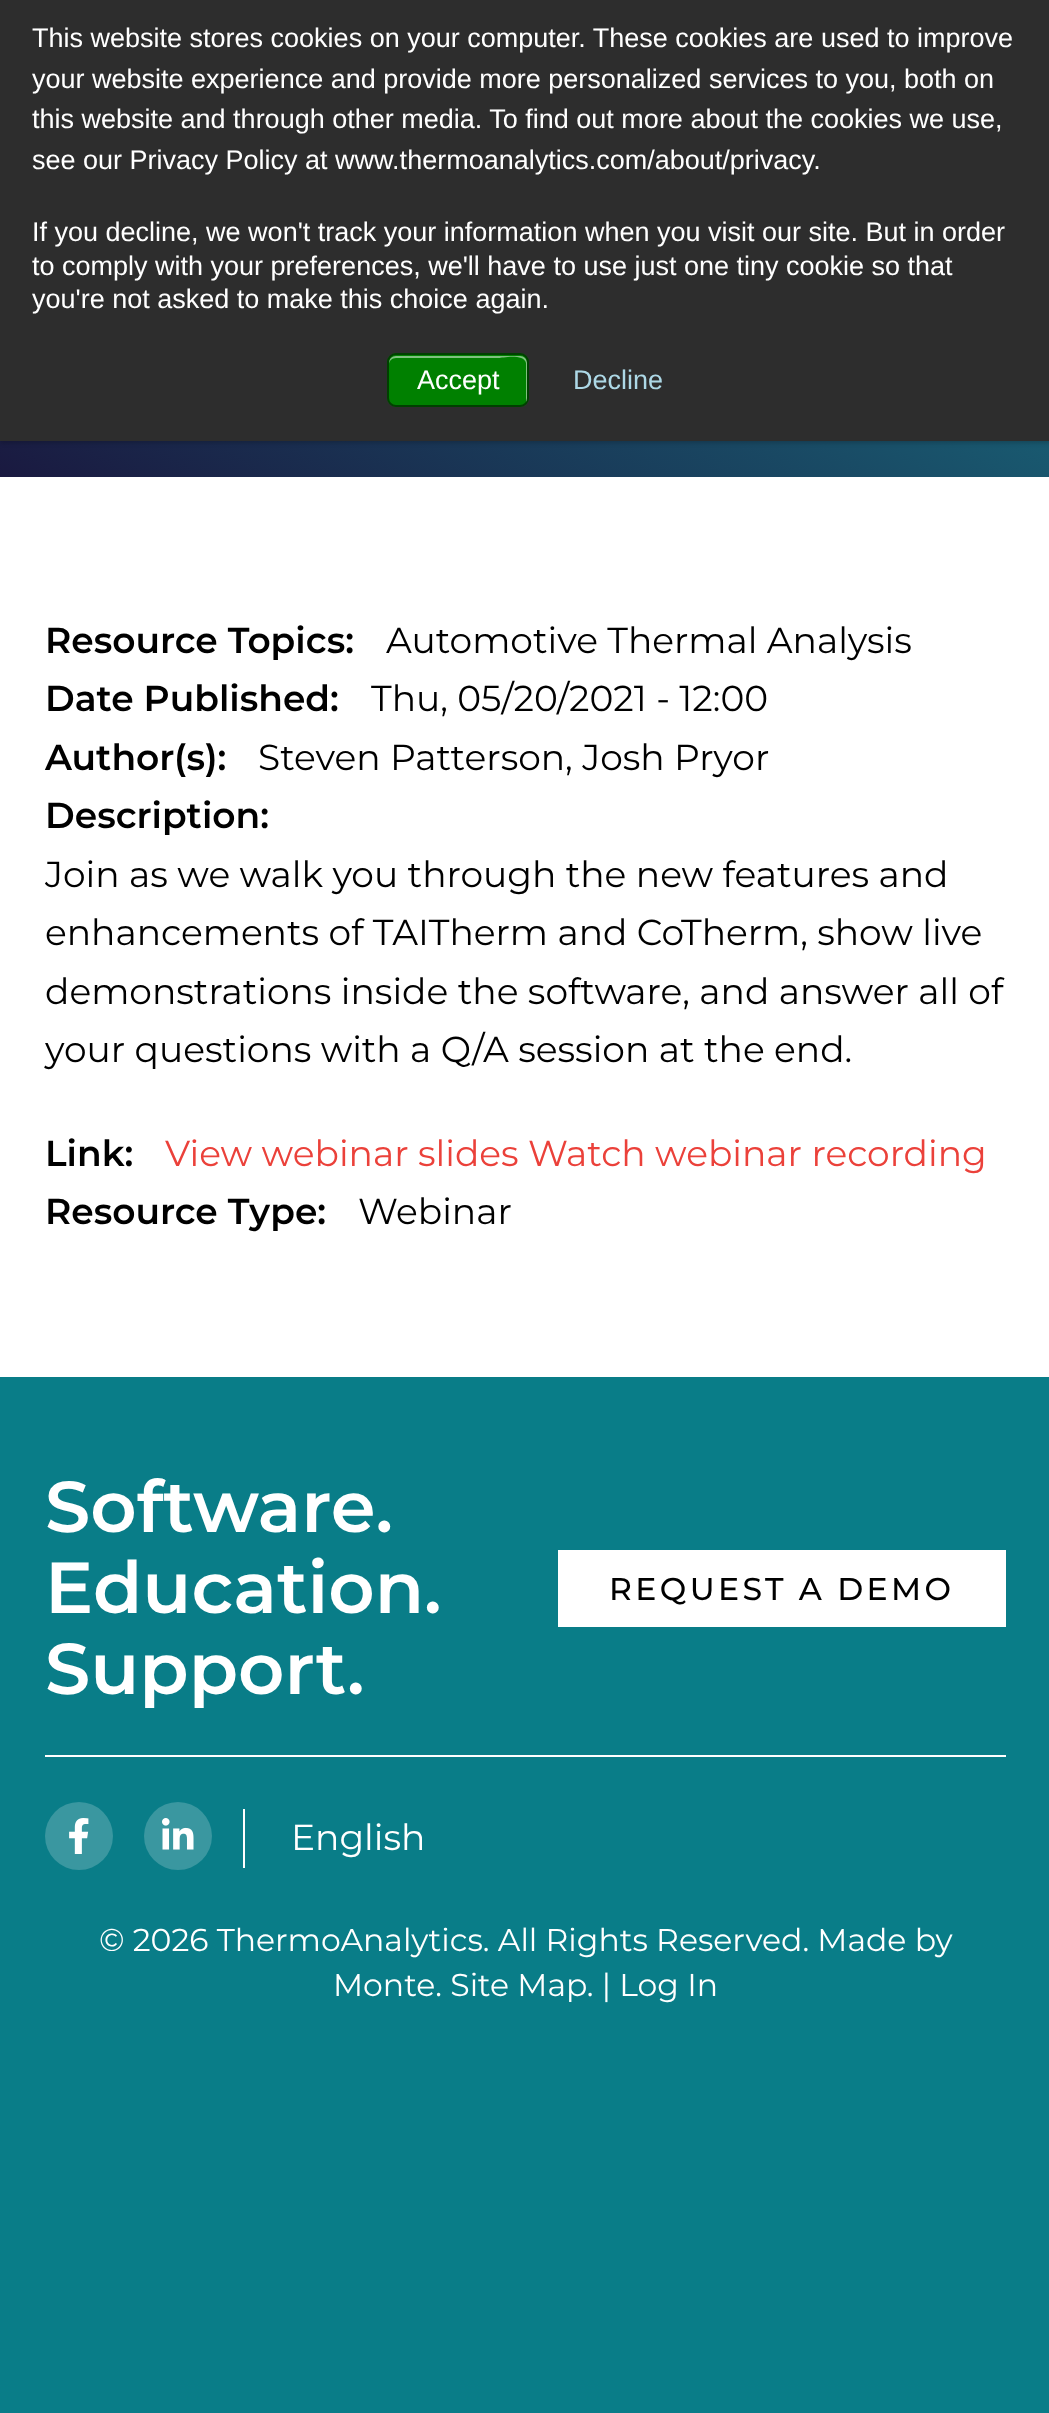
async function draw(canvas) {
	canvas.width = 1049;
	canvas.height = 2413;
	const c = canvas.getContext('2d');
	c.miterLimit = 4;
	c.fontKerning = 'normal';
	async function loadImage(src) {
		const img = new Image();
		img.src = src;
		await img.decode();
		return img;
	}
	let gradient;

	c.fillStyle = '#097d88';
	c.fillRect(0, 0, 1049, 2413);
	gradient = c.createLinearGradient(291, 645, 760, -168);
	gradient.addColorStop(0, '#1a1940');
	gradient.addColorStop(1, '#188691');
	c.fillStyle = gradient;
	c.fillRect(0, 441, 1049, 36);
	c.fillStyle = '#00000033';
	c.filter = 'blur(2px)';
	c.beginPath();
	c.rect(0, 2, 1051, 441);
	c.fill();
	c.filter = 'none';
	c.fillStyle = '#2d2d2d';
	c.fillRect(0, 0, 1049, 441);
	c.font = '27px Liberation Sans';
	c.fillStyle = '#fff';
	for (const [text, x, y] of [
		['This website stores cookies on your computer. These cookies are used to improve', 32, 47],
		['your website experience and provide more personalized services to you, both on', 32, 88],
		['this website and through other media. To find out more about the cookies we use,', 32, 128],
		['see our Privacy Policy at www.thermoanalytics.com/about/privacy.', 32, 169],
		['If you decline, we won\'t track your information when you visit our site. But in order', 32, 241],
		['to comply with your preferences, we\'ll have to use just one tiny cookie so that', 32, 275],
		['you\'re not asked to make this choice again.', 32, 308],
	]) {
		c.fillText(text, x, y);
	}
	c.fillStyle = '#008000';
	c.beginPath();
	c.roundRect(387, 353, 142, 54, 9);
	c.fill();
	c.fillStyle = '#80c080';
	c.beginPath();
	c.moveTo(396, 358);
	c.lineTo(499, 358);
	c.bezierCurveTo(501, 358, 524, 353, 526, 363);
	c.lineTo(526, 402);
	c.bezierCurveTo(527, 401, 527, 399, 527, 398);
	c.lineTo(527, 363);
	c.bezierCurveTo(527, 359, 524, 356, 520, 356);
	c.lineTo(396, 356);
	c.bezierCurveTo(392, 356, 389, 359, 389, 363);
	c.lineTo(389, 364);
	c.bezierCurveTo(389, 361, 392, 358, 396, 358);
	c.closePath();
	c.fill();
	c.beginPath();
	c.roundRect(388, 354, 140, 52, 8);
	c.strokeStyle = '#00000080';
	c.lineWidth = 2;
	c.stroke();
	c.fillStyle = '#fff';
	c.fillText('Accept', 417, 389);
	c.fillStyle = '#add8e6';
	c.fillText('Decline', 573, 389);
	c.fillStyle = '#fff';
	c.fillRect(0, 477, 1049, 900);
	c.font = '600 36px Montserrat';
	c.fillStyle = '#000';
	c.fillText('Resource Topics:', 45, 653);
	c.font = '36px Montserrat';
	c.fillText('Automotive Thermal Analysis', 386, 653);
	c.font = '600 36px Montserrat';
	c.fillText('Date Published:', 45, 711);
	c.font = '36px Montserrat';
	c.fillText('Thu, 05/20/2021 - 12:00', 371, 711);
	c.font = '600 36px Montserrat';
	c.fillText('Author(s):', 45, 770);
	c.font = '36px Montserrat';
	c.fillText('Steven Patterson, Josh Pryor', 258, 770);
	c.font = '600 36px Montserrat';
	c.fillText('Description:', 45, 828);
	c.font = '36px Montserrat';
	for (const [text, x, y] of [
		['Join as we walk you through the new features and', 45, 887],
		['enhancements of TAITherm and CoTherm, show live', 45, 945],
		['demonstrations inside the software, and answer all of', 45, 1004],
		['your questions with a Q/A session at the end.', 45, 1062],
	]) {
		c.fillText(text, x, y);
	}
	c.font = '600 36px Montserrat';
	c.fillText('Link:', 45, 1166);
	c.font = '36px Montserrat';
	c.fillStyle = '#eb413a';
	c.fillText('View webinar slides Watch webinar recording', 165, 1166);
	c.font = '600 36px Montserrat';
	c.fillStyle = '#000';
	c.fillText('Resource Type:', 45, 1224);
	c.font = '36px Montserrat';
	c.fillText('Webinar', 358, 1224);
	c.fillStyle = '#fff';
	c.fillRect(45, 1755, 961, 2);
	c.font = '600 72px Montserrat';
	for (const [text, x, y] of [
		['Software.', 45, 1532],
		['Education.', 45, 1613],
		['Support.', 45, 1694],
	]) {
		c.fillText(text, x, y);
	}
	c.fillRect(558, 1550, 448, 77);
	c.letterSpacing = '3.4px';
	c.font = '500 31.5px Montserrat';
	c.fillStyle = '#000';
	c.fillText('REQUEST A DEMO', 609, 1600);
	c.fillStyle = '#3a97a0';
	c.beginPath();
	c.arc(79, 1836, 34, 0, 2 * Math.PI);
	c.fill();
	c.drawImage(await loadImage('img1.png'), 69, 1818, 20, 36);
	c.beginPath();
	c.arc(178, 1836, 34, 0, 2 * Math.PI);
	c.fill();
	c.drawImage(await loadImage('img2.png'), 162, 1818, 32, 32);
	c.fillStyle = '#fff';
	c.fillRect(243, 1809, 2, 59);
	c.letterSpacing = '0px';
	c.font = '36px Montserrat';
	c.fillText('English', 291, 1850);
	c.font = '31.5px Montserrat';
	c.fillText('© 2026 ThermoAnalytics. All Rights Reserved. Made by', 99, 1951);
	c.fillText('Monte. Site Map. | Log In', 333, 1996);
}

draw(document.querySelector('canvas'));
